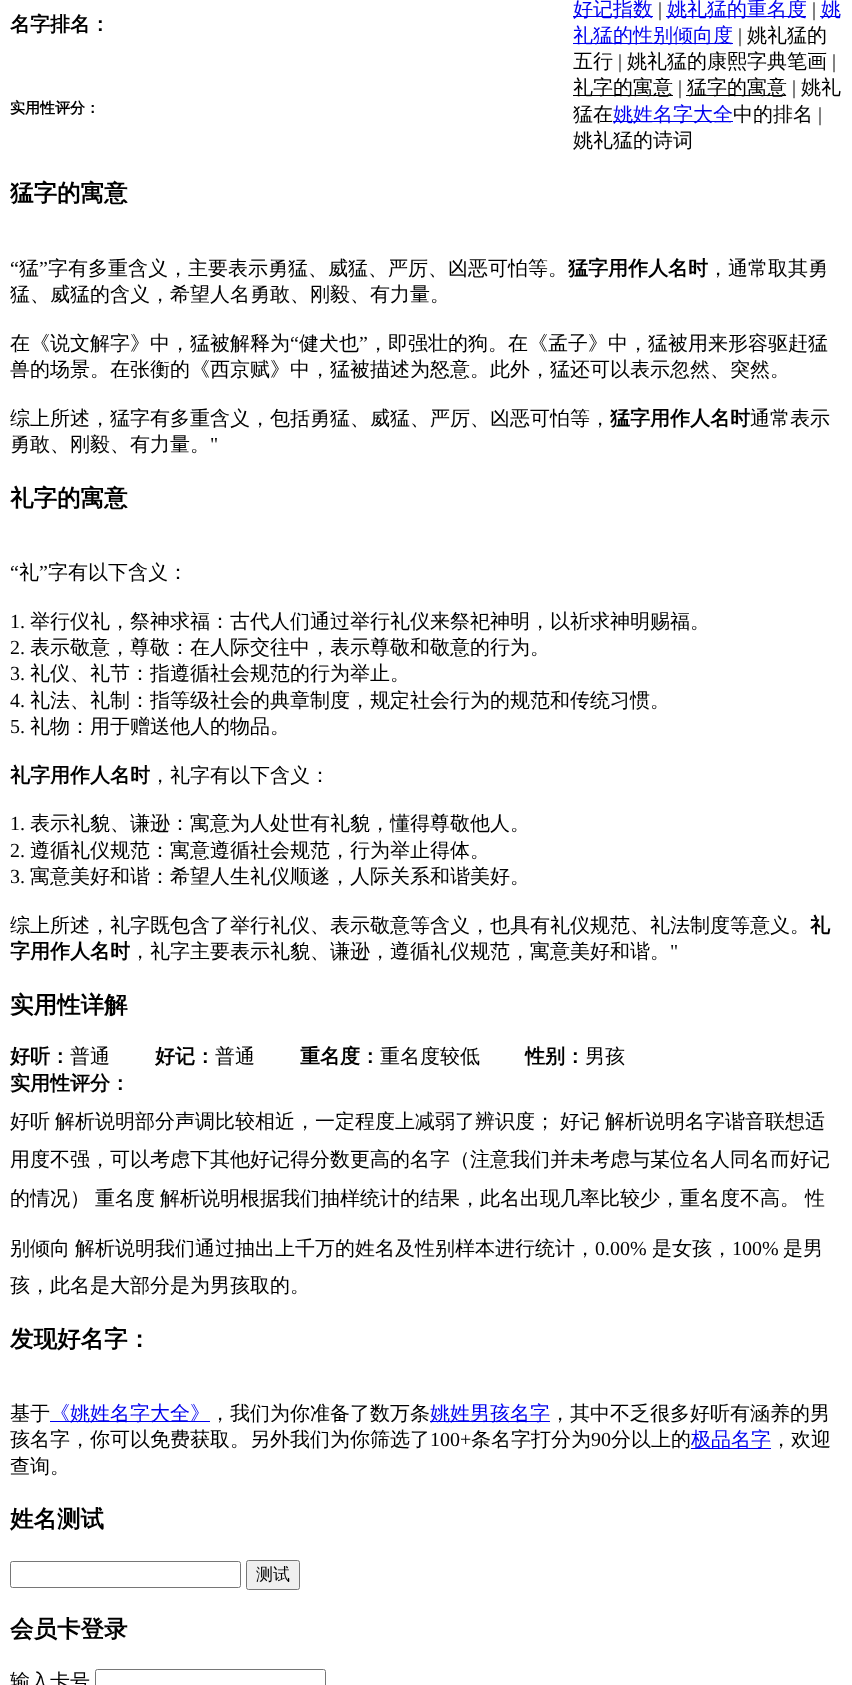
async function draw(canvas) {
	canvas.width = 852;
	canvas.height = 1685;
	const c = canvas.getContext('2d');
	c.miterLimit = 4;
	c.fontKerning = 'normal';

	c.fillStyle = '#fff';
	c.fillRect(0, 0, 852, 1685);
	c.font = 'bold 20px WenQuanYi Zen Hei';
	c.fillStyle = '#000';
	c.fillText('名字排名：', 10, 31);
	c.font = 'bold 15px WenQuanYi Zen Hei';
	c.fillText('实用性评分：', 10, 113);
	c.fillStyle = '#00e';
	c.fillRect(573, 16, 80, 1);
	c.font = '500 20px WenQuanYi Zen Hei';
	c.fillText('好记指数', 573, 16);
	c.font = '20px Liberation Serif';
	c.fillStyle = '#000';
	c.fillText('|', 658, 16);
	c.fillStyle = '#00e';
	c.fillRect(666, 16, 140, 1);
	c.font = '500 20px WenQuanYi Zen Hei';
	c.fillText('姚礼猛的重名度', 667, 16);
	c.font = '20px Liberation Serif';
	c.fillStyle = '#000';
	c.fillText('|', 812, 16);
	c.fillStyle = '#00e';
	c.fillRect(820, 16, 20, 1);
	c.font = '500 20px WenQuanYi Zen Hei';
	c.fillText('姚', 821, 16);
	c.fillRect(573, 43, 160, 1);
	c.fillText('礼猛的性别倾向度', 573, 42);
	c.font = '20px Liberation Serif';
	c.fillStyle = '#000';
	c.fillText('|', 738, 42);
	c.font = '500 20px WenQuanYi Zen Hei';
	c.fillText('姚礼猛的', 747, 42);
	c.fillText('五行', 573, 68);
	c.font = '20px Liberation Serif';
	c.fillText('|', 618, 68);
	c.font = '500 20px WenQuanYi Zen Hei';
	c.fillText('姚礼猛的康熙字典笔画', 627, 68);
	c.font = '20px Liberation Serif';
	c.fillText('|', 832, 68);
	c.fillRect(573, 95, 100, 1);
	c.font = '500 20px WenQuanYi Zen Hei';
	c.fillText('礼字的寓意', 573, 94);
	c.font = '20px Liberation Serif';
	c.fillText('|', 678, 94);
	c.fillRect(686, 95, 100, 1);
	c.font = '500 20px WenQuanYi Zen Hei';
	c.fillText('猛字的寓意', 687, 94);
	c.font = '20px Liberation Serif';
	c.fillText('|', 792, 94);
	c.font = '500 20px WenQuanYi Zen Hei';
	c.fillText('姚礼', 801, 94);
	c.fillText('猛在', 573, 121);
	c.fillStyle = '#00e';
	c.fillRect(613, 121, 120, 1);
	c.fillText('姚姓名字大全', 613, 121);
	c.fillStyle = '#000';
	c.fillText('中的排名', 733, 121);
	c.font = '20px Liberation Serif';
	c.fillText('|', 818, 121);
	c.font = '500 20px WenQuanYi Zen Hei';
	c.fillText('姚礼猛的诗词', 573, 147);
	c.font = 'bold 23.5px WenQuanYi Zen Hei';
	c.fillText('猛字的寓意', 10, 201);
	c.font = '20px Liberation Serif';
	c.fillText('“', 10, 275);
	c.font = '500 20px WenQuanYi Zen Hei';
	c.fillText('猛', 19, 275);
	c.font = '20px Liberation Serif';
	c.fillText('”', 39, 275);
	c.font = '500 20px WenQuanYi Zen Hei';
	c.fillText('字有多重含义，主要表示勇猛、威猛、严厉、凶恶可怕等。', 48, 275);
	c.font = 'bold 20px WenQuanYi Zen Hei';
	c.fillText('猛字用作人名时', 568, 275);
	c.font = '500 20px WenQuanYi Zen Hei';
	for (const [text, x, y] of [
		['，通常取其勇', 708, 275],
		['猛、威猛的含义，希望人名勇敢、刚毅、有力量。', 10, 301],
		['在《说文解字》中，猛被解释为', 10, 350],
	]) {
		c.fillText(text, x, y);
	}
	c.font = '20px Liberation Serif';
	c.fillText('“', 290, 350);
	c.font = '500 20px WenQuanYi Zen Hei';
	c.fillText('健犬也', 299, 350);
	c.font = '20px Liberation Serif';
	c.fillText('”', 359, 350);
	c.font = '500 20px WenQuanYi Zen Hei';
	for (const [text, x, y] of [
		['，即强壮的狗。在《孟子》中，猛被用来形容驱赶猛', 368, 350],
		['兽的场景。在张衡的《西京赋》中，猛被描述为怒意。此外，猛还可以表示忽然、突然。', 10, 376],
		['综上所述，猛字有多重含义，包括勇猛、威猛、严厉、凶恶可怕等，', 10, 425],
	]) {
		c.fillText(text, x, y);
	}
	c.font = 'bold 20px WenQuanYi Zen Hei';
	c.fillText('猛字用作人名时', 610, 425);
	c.font = '500 20px WenQuanYi Zen Hei';
	c.fillText('通常表示', 750, 425);
	c.fillText('勇敢、刚毅、有力量。', 10, 451);
	c.font = '20px Liberation Serif';
	c.fillText('"', 210, 451);
	c.font = 'bold 23.5px WenQuanYi Zen Hei';
	c.fillText('礼字的寓意', 10, 506);
	c.font = '20px Liberation Serif';
	c.fillText('“', 10, 579);
	c.font = '500 20px WenQuanYi Zen Hei';
	c.fillText('礼', 19, 579);
	c.font = '20px Liberation Serif';
	c.fillText('”', 39, 579);
	c.font = '500 20px WenQuanYi Zen Hei';
	c.fillText('字有以下含义：', 48, 579);
	c.font = '20px Liberation Serif';
	c.fillText('1.', 10, 628);
	c.font = '500 20px WenQuanYi Zen Hei';
	c.fillText('举行仪礼，祭神求福：古代人们通过举行礼仪来祭祀神明，以祈求神明赐福。', 30, 628);
	c.font = '20px Liberation Serif';
	c.fillText('2.', 10, 654);
	c.font = '500 20px WenQuanYi Zen Hei';
	c.fillText('表示敬意，尊敬：在人际交往中，表示尊敬和敬意的行为。', 30, 654);
	c.font = '20px Liberation Serif';
	c.fillText('3.', 10, 680);
	c.font = '500 20px WenQuanYi Zen Hei';
	c.fillText('礼仪、礼节：指遵循社会规范的行为举止。', 30, 680);
	c.font = '20px Liberation Serif';
	c.fillText('4.', 10, 707);
	c.font = '500 20px WenQuanYi Zen Hei';
	c.fillText('礼法、礼制：指等级社会的典章制度，规定社会行为的规范和传统习惯。', 30, 707);
	c.font = '20px Liberation Serif';
	c.fillText('5.', 10, 733);
	c.font = '500 20px WenQuanYi Zen Hei';
	c.fillText('礼物：用于赠送他人的物品。', 30, 733);
	c.font = 'bold 20px WenQuanYi Zen Hei';
	c.fillText('礼字用作人名时', 10, 782);
	c.font = '500 20px WenQuanYi Zen Hei';
	c.fillText('，礼字有以下含义：', 150, 782);
	c.font = '20px Liberation Serif';
	c.fillText('1.', 10, 830);
	c.font = '500 20px WenQuanYi Zen Hei';
	c.fillText('表示礼貌、谦逊：寓意为人处世有礼貌，懂得尊敬他人。', 30, 830);
	c.font = '20px Liberation Serif';
	c.fillText('2.', 10, 857);
	c.font = '500 20px WenQuanYi Zen Hei';
	c.fillText('遵循礼仪规范：寓意遵循社会规范，行为举止得体。', 30, 857);
	c.font = '20px Liberation Serif';
	c.fillText('3.', 10, 883);
	c.font = '500 20px WenQuanYi Zen Hei';
	c.fillText('寓意美好和谐：希望人生礼仪顺遂，人际关系和谐美好。', 30, 883);
	c.fillText('综上所述，礼字既包含了举行礼仪、表示敬意等含义，也具有礼仪规范、礼法制度等意义。', 10, 932);
	c.font = 'bold 20px WenQuanYi Zen Hei';
	c.fillText('礼', 810, 932);
	c.fillText('字用作人名时', 10, 958);
	c.font = '500 20px WenQuanYi Zen Hei';
	c.fillText('，礼字主要表示礼貌、谦逊，遵循礼仪规范，寓意美好和谐。', 130, 958);
	c.font = '20px Liberation Serif';
	c.fillText('"', 670, 958);
	c.font = 'bold 23.5px WenQuanYi Zen Hei';
	c.fillText('实用性详解', 10, 1013);
	c.font = 'bold 20px WenQuanYi Zen Hei';
	c.fillText('好听：', 10, 1063);
	c.font = '500 20px WenQuanYi Zen Hei';
	c.fillText('普通', 70, 1063);
	c.font = 'bold 20px WenQuanYi Zen Hei';
	c.fillText('好记：', 155, 1063);
	c.font = '500 20px WenQuanYi Zen Hei';
	c.fillText('普通', 215, 1063);
	c.font = 'bold 20px WenQuanYi Zen Hei';
	c.fillText('重名度：', 300, 1063);
	c.font = '500 20px WenQuanYi Zen Hei';
	c.fillText('重名度较低', 380, 1063);
	c.font = 'bold 20px WenQuanYi Zen Hei';
	c.fillText('性别：', 525, 1063);
	c.font = '500 20px WenQuanYi Zen Hei';
	c.fillText('男孩', 585, 1063);
	c.font = 'bold 20px WenQuanYi Zen Hei';
	c.fillText('实用性评分：', 10, 1090);
	c.wordSpacing = '-1px';
	c.font = '500 20px WenQuanYi Zen Hei';
	c.fillText('好听 解析说明', 10, 1128);
	c.wordSpacing = '0px';
	c.fillText('部分声调比较相近，一定程度上减弱了辨识度；', 135, 1128);
	c.wordSpacing = '-1px';
	c.fillText('好记 解析说明', 560, 1128);
	c.wordSpacing = '0px';
	for (const [text, x, y] of [
		['名字谐音联想适', 685, 1128],
		['用度不强，可以考虑下其他好记得分数更高的名字（注意我们并未考虑与某位名人同名而好记', 10, 1166],
		['的情况）', 10, 1205],
	]) {
		c.fillText(text, x, y);
	}
	c.wordSpacing = '-1px';
	c.fillText('重名度 解析说明', 95, 1205);
	c.wordSpacing = '0px';
	c.fillText('根据我们抽样统计的结果，此名出现几率比较少，重名度不高。', 240, 1205);
	c.fillText('性', 805, 1205);
	c.wordSpacing = '-1px';
	c.fillText('别倾向 解析说明', 10, 1255);
	c.wordSpacing = '0px';
	c.fillText('我们通过抽出上千万的姓名及性别样本进行统计，', 155, 1255);
	c.font = '20px Liberation Serif';
	c.fillText('0.00%', 595, 1255);
	c.font = '500 20px WenQuanYi Zen Hei';
	c.fillText('是女孩，', 652, 1255);
	c.font = '20px Liberation Serif';
	c.fillText('100%', 732, 1255);
	c.font = '500 20px WenQuanYi Zen Hei';
	c.fillText('是男', 783, 1255);
	c.fillText('孩，此名是大部分是为男孩取的。', 10, 1292);
	c.font = 'bold 23.5px WenQuanYi Zen Hei';
	c.fillText('发现好名字：', 10, 1347);
	c.font = '500 20px WenQuanYi Zen Hei';
	c.fillText('基于', 10, 1420);
	c.fillStyle = '#00e';
	c.fillRect(50, 1421, 160, 1);
	c.fillText('《姚姓名字大全》', 50, 1420);
	c.fillStyle = '#000';
	c.fillText('，我们为你准备了数万条', 210, 1420);
	c.fillStyle = '#00e';
	c.fillRect(430, 1421, 120, 1);
	c.fillText('姚姓男孩名字', 430, 1420);
	c.fillStyle = '#000';
	c.fillText('，其中不乏很多好听有涵养的男', 550, 1420);
	c.fillText('孩名字，你可以免费获取。另外我们为你筛选了', 10, 1446);
	c.font = '20px Liberation Serif';
	c.fillText('100+', 430, 1446);
	c.font = '500 20px WenQuanYi Zen Hei';
	c.fillText('条名字打分为', 471, 1446);
	c.font = '20px Liberation Serif';
	c.fillText('90', 591, 1446);
	c.font = '500 20px WenQuanYi Zen Hei';
	c.fillText('分以上的', 611, 1446);
	c.fillStyle = '#00e';
	c.fillRect(691, 1448, 80, 1);
	c.fillText('极品名字', 691, 1446);
	c.fillStyle = '#000';
	c.fillText('，欢迎', 771, 1446);
	c.fillText('查询。', 10, 1473);
	c.font = 'bold 23.5px WenQuanYi Zen Hei';
	c.fillText('姓名测试', 10, 1527);
	c.beginPath();
	c.roundRect(10.5, 1561.5, 230, 26, 2);
	c.strokeStyle = '#767676';
	c.stroke();
	c.fillStyle = '#efefef';
	c.beginPath();
	c.roundRect(246.5, 1560.5, 53, 29, 2);
	c.fill();
	c.stroke();
	c.font = '500 17px WenQuanYi Zen Hei';
	c.fillStyle = '#000';
	c.fillText('测试', 256, 1580);
	c.font = 'bold 23.5px WenQuanYi Zen Hei';
	c.fillText('会员卡登录', 10, 1637);
	c.font = '500 20px WenQuanYi Zen Hei';
	c.fillText('输入卡号', 10, 1688);
	c.beginPath();
	c.roundRect(95.5, 1669.5, 230, 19, 2);
	c.stroke();
}

draw(document.querySelector('canvas'));
